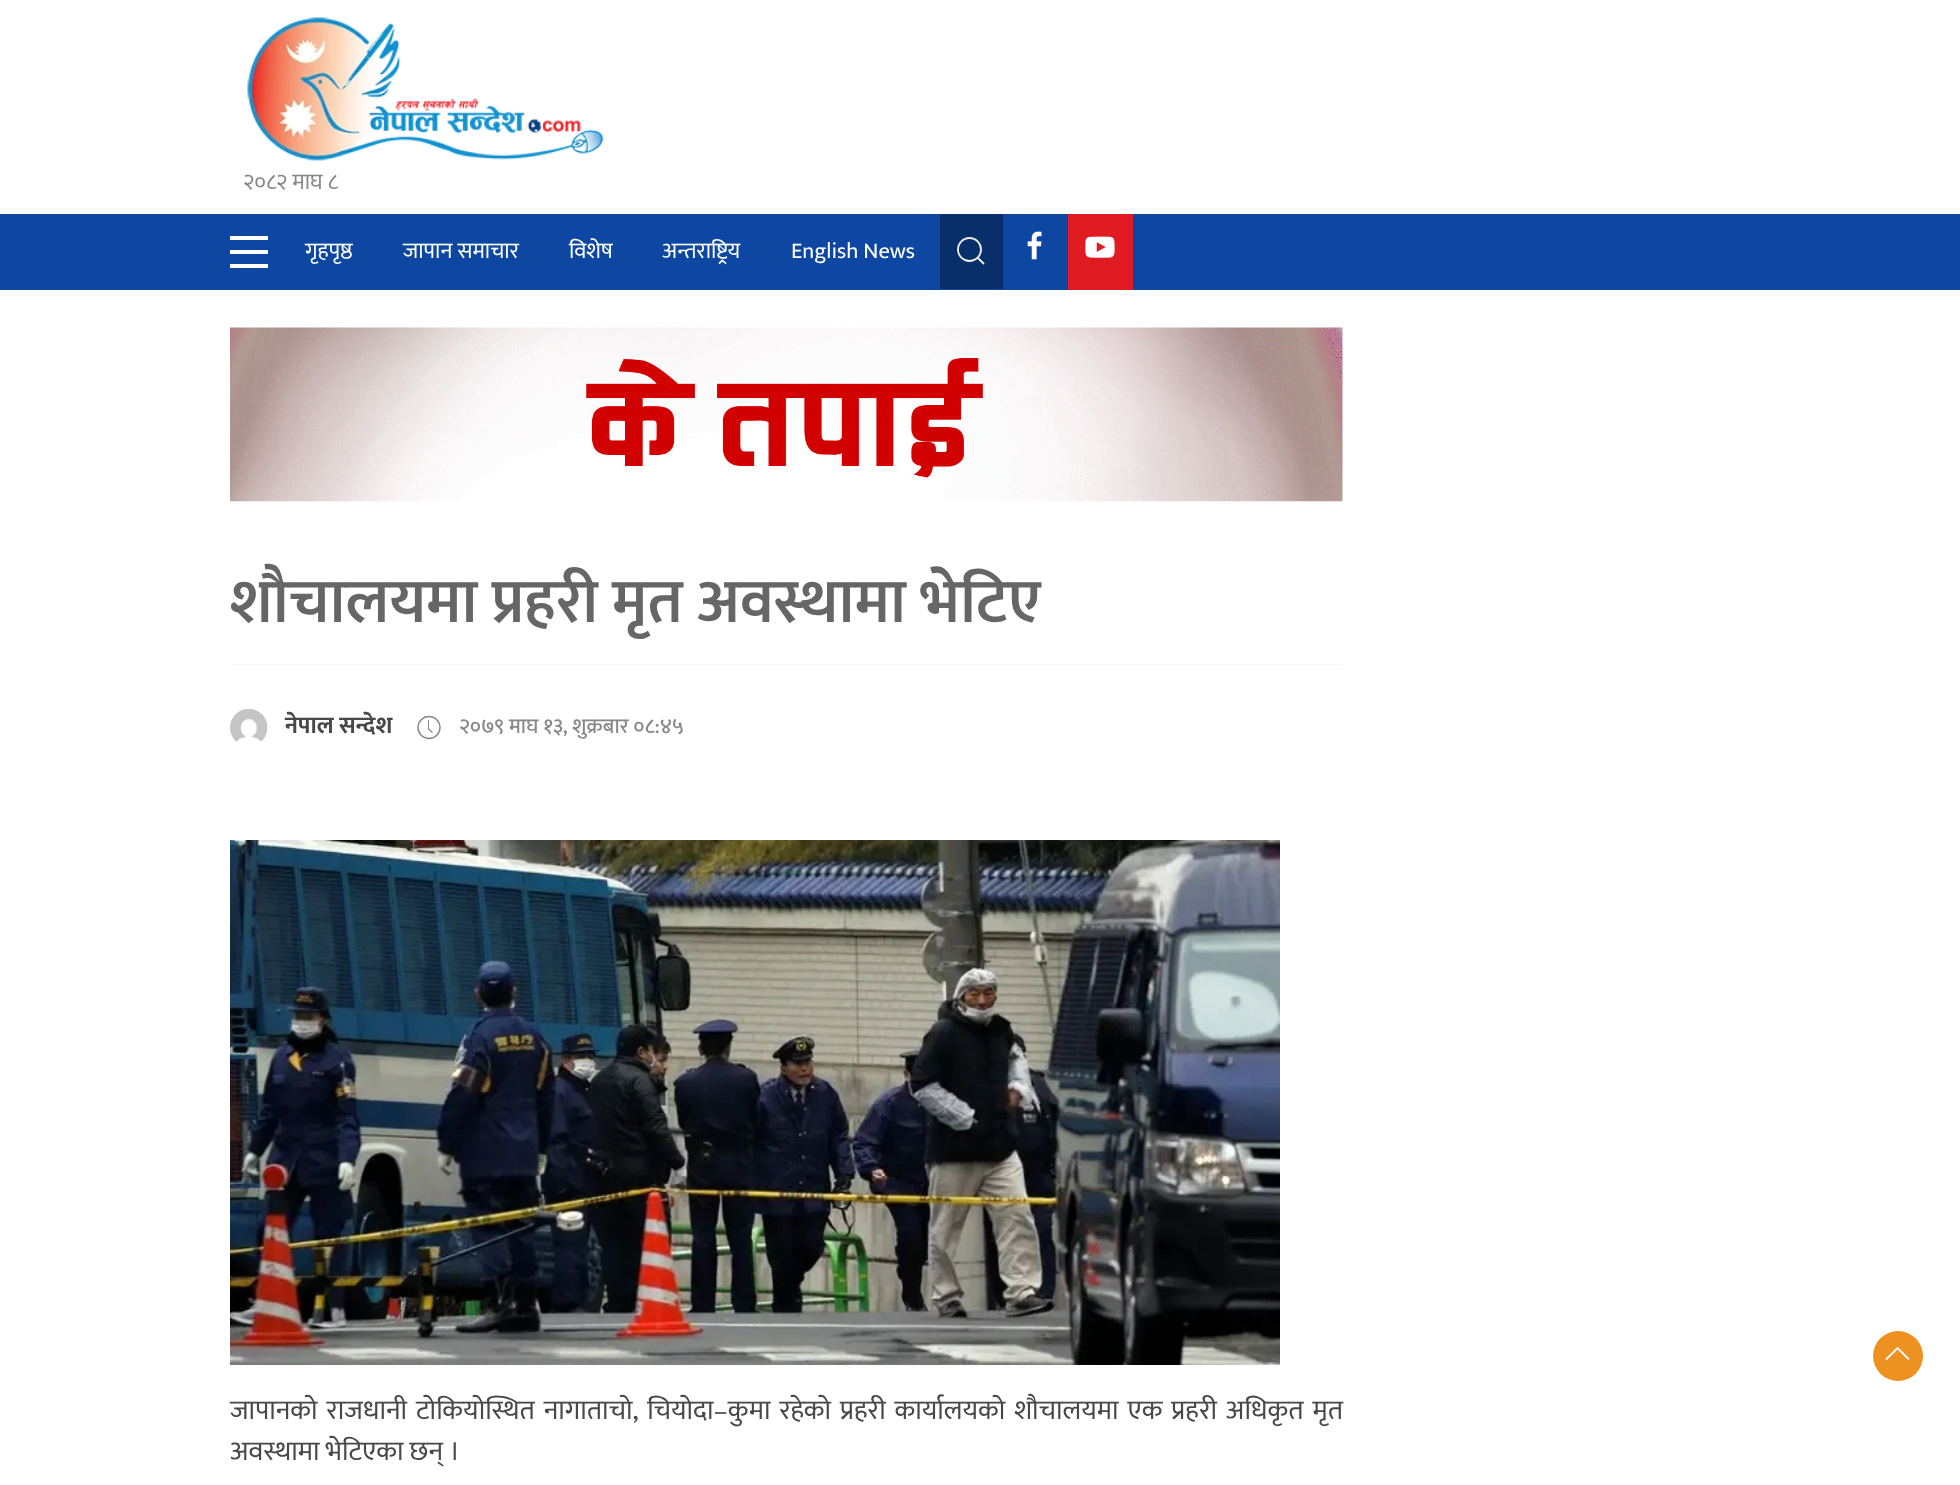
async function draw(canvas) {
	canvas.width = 1960;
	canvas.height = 1485;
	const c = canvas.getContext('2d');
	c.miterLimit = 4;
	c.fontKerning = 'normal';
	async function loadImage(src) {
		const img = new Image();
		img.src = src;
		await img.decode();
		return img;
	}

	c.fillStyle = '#fff';
	c.fillRect(0, 0, 1960, 1485);
	c.drawImage(await loadImage('img1.png'), 247, 17, 357, 144);
	c.font = '22.5px Ek Mukta';
	c.fillStyle = '#888';
	c.fillText('२०८२ माघ ८', 243, 189);
	for (const [x, y, w, h, color] of [
		[0, 214, 1960, 76, '#0d47a1'],
		[230, 236, 38, 4, '#fff'],
		[230, 250, 38, 4, '#fff'],
		[230, 264, 38, 4, '#fff'],
	]) {
		c.fillStyle = color;
		c.fillRect(x, y, w, h);
	}
	for (const [text, x, y] of [
		['गृहपृष्ठ', 305, 258],
		['जापान समाचार', 403, 258],
		['विशेष', 569, 258],
		['अन्तराष्ट्रिय', 662, 258],
		['English News', 791, 258],
	]) {
		c.fillText(text, x, y);
	}
	c.fillStyle = '#092f6a';
	c.fillRect(940, 214, 63, 75);
	c.beginPath();
	c.arc(969.5, 249.5, 11.5, 0, 2 * Math.PI);
	c.strokeStyle = '#eee';
	c.lineWidth = 1.8;
	c.stroke();
	c.beginPath();
	c.moveTo(978, 258);
	c.lineTo(984, 264);
	c.closePath();
	c.stroke();
	c.drawImage(await loadImage('img2.png'), 1027, 231, 15, 29);
	c.fillStyle = '#e11b22';
	c.fillRect(1068, 214, 65, 76);
	c.drawImage(await loadImage('img3.png'), 1085, 236, 30, 22);
	c.drawImage(await loadImage('img4.png'), 230, 327, 1113, 175);
	c.fillStyle = '#f8f8f8';
	c.fillRect(230, 664, 1113, 1);
	c.font = '600 62.5px Ek Mukta';
	c.fillStyle = '#666';
	c.fillText('शौचालयमा प्रहरी मृत अवस्थामा भेटिए', 230, 622);
	c.drawImage(await loadImage('img5.png'), 230, 709, 38, 33);
	c.font = 'bold 23.75px Ek Mukta';
	c.fillStyle = '#484848';
	c.fillText('नेपाल सन्देश', 285, 733);
	c.beginPath();
	c.arc(429, 727.5, 11, 0, 2 * Math.PI);
	c.strokeStyle = '#888';
	c.lineWidth = 1.4;
	c.stroke();
	c.fillStyle = '#888';
	c.fillRect(428, 720, 1, 9);
	c.beginPath();
	c.moveTo(432.5, 732.5);
	c.lineTo(428, 728.5);
	c.stroke();
	c.font = '500 21.25px Ek Mukta';
	c.fillText('२०७९ माघ १३, शुक्रबार ०८:४५', 459, 733);
	c.drawImage(await loadImage('img6.png'), 230, 840, 1050, 525);
	c.wordSpacing = '2.75px';
	c.font = '27.5px Ek Mukta';
	c.fillStyle = '#484848';
	c.fillText('जापानको राजधानी टोकियोस्थित नागाताचो, चियोदा–कुमा रहेको प्रहरी कार्यालयको शौचालयमा एक प्रहरी अधिकृत मृत', 230, 1419);
	c.wordSpacing = '0px';
	c.fillText('अवस्थामा भेटिएका छन् ।', 230, 1460);
	c.fillStyle = '#ed9221';
	c.beginPath();
	c.arc(1898, 1356, 25, 0, 2 * Math.PI);
	c.fill();
	c.beginPath();
	c.moveTo(1886, 1359.5);
	c.lineTo(1897.5, 1348);
	c.lineTo(1909, 1359.5);
	c.strokeStyle = '#fff';
	c.lineWidth = 1.9;
	c.stroke();
}

draw(document.querySelector('canvas'));
